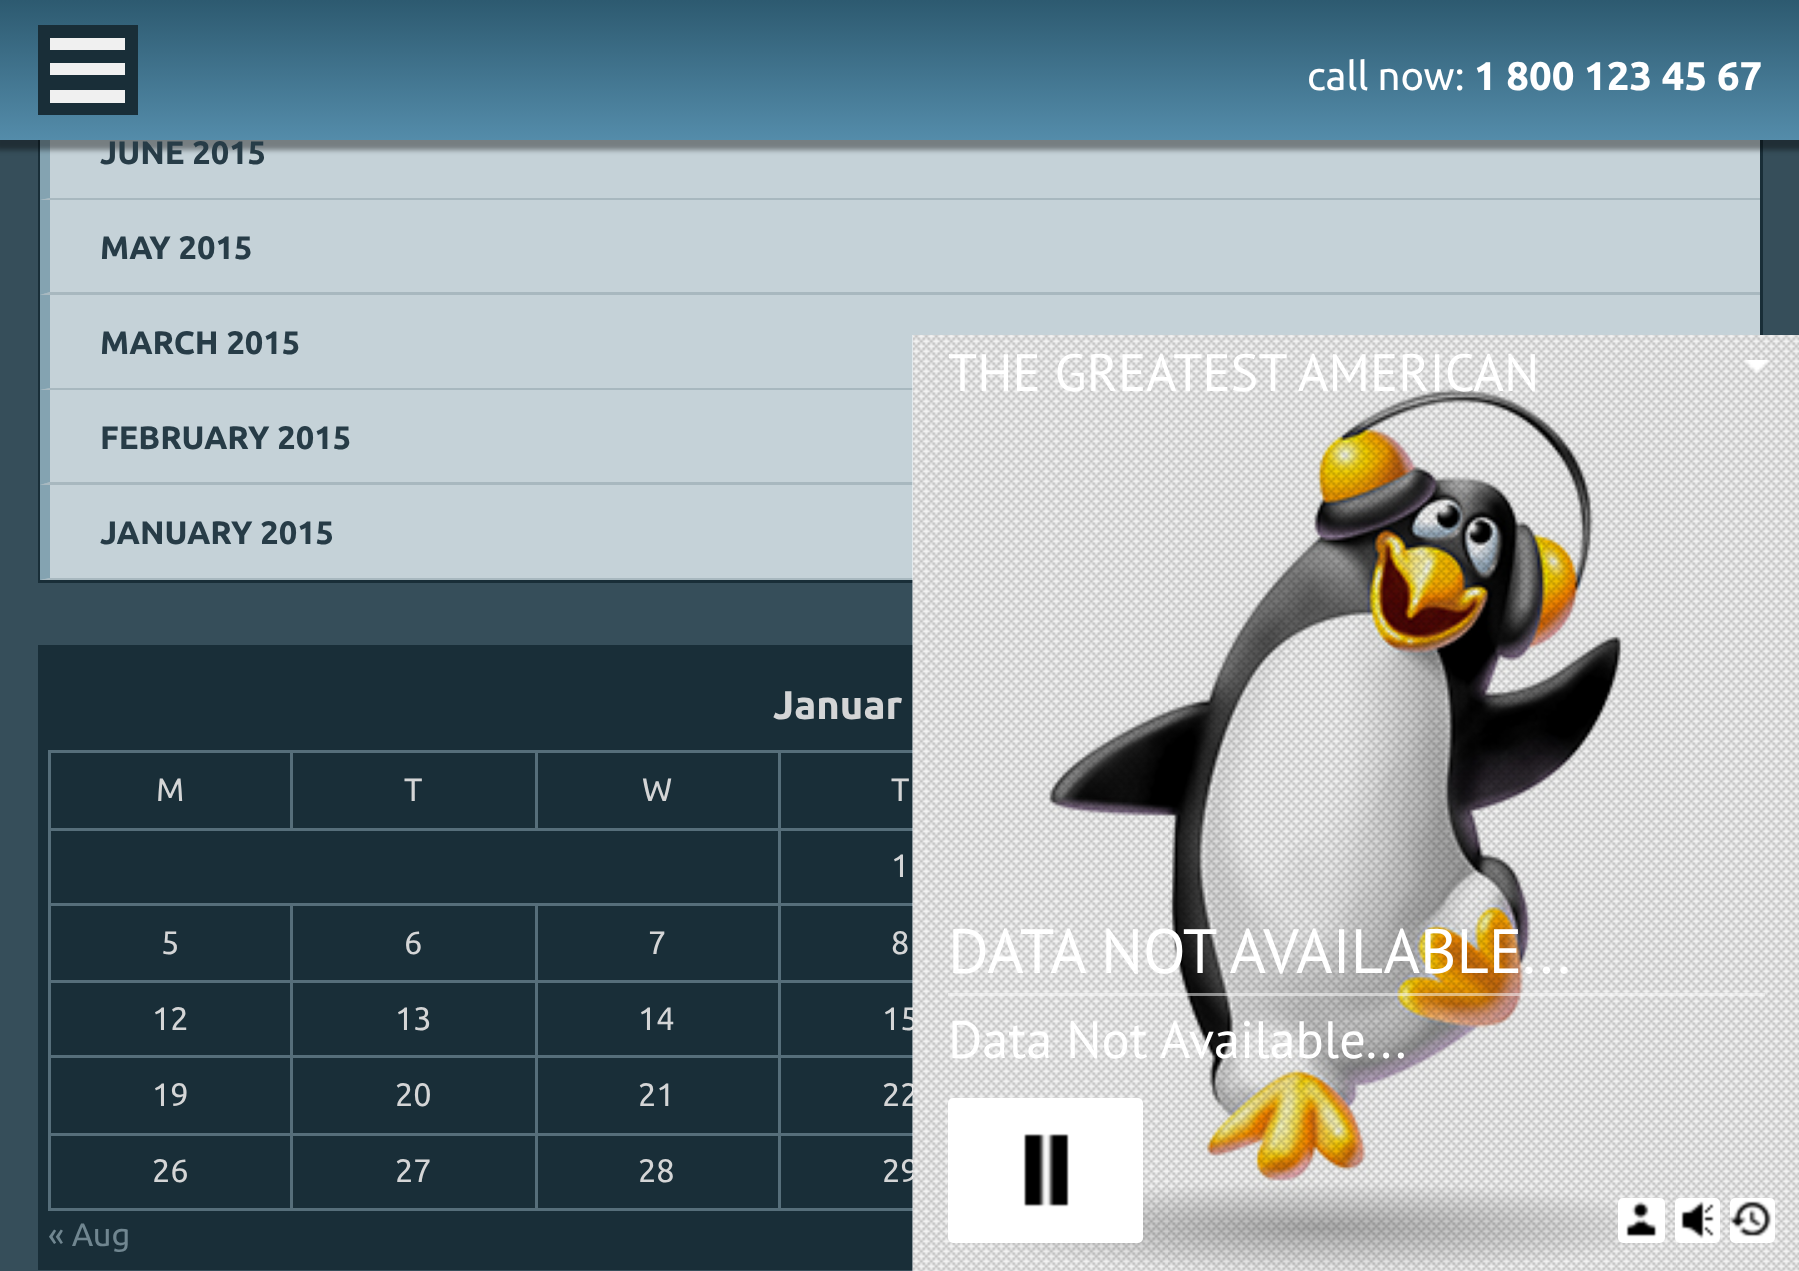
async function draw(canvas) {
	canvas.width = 1799;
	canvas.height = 1271;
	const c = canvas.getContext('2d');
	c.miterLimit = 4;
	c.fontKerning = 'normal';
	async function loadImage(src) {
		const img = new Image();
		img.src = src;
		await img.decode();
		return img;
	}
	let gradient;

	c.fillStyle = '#364e5a';
	c.fillRect(0, 0, 1799, 1271);
	c.strokeStyle = '#192e38';
	c.lineWidth = 3;
	c.strokeRect(39.5, -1.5, 1722, 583);
	c.fillStyle = '#c5d2d8';
	c.fillRect(40, 140, 1720, 250);
	c.fillStyle = '#a8b8bf';
	c.beginPath();
	c.moveTo(1760, 200);
	c.lineTo(40, 200);
	c.lineTo(50, 198);
	c.lineTo(1760, 198);
	c.closePath();
	c.fill();
	c.fillStyle = '#84a3b1';
	c.beginPath();
	c.moveTo(40, 200);
	c.lineTo(40, 105);
	c.lineTo(50, 105);
	c.lineTo(50, 198);
	c.closePath();
	c.fill();
	c.fillStyle = '#00000066';
	c.filter = 'blur(2.5px)';
	c.beginPath();
	c.rect(-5, 0, 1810, 150);
	c.fill();
	c.filter = 'none';
	gradient = c.createLinearGradient(900, 140, 900, 0);
	gradient.addColorStop(0, '#548caa');
	gradient.addColorStop(1, '#2d5a70');
	c.fillStyle = gradient;
	c.fillRect(0, 0, 1799, 140);
	for (const [x, y, w, h, color] of [
		[38, 25, 100, 90, '#192e38'],
		[50, 38, 75, 12, '#f0f0f0'],
		[50, 63, 75, 12, '#f0f0f0'],
		[50, 90, 75, 13, '#f0f0f0'],
	]) {
		c.fillStyle = color;
		c.fillRect(x, y, w, h);
	}
	c.font = '40px Ubuntu';
	c.fillStyle = '#fff';
	c.fillText('call now:', 1307, 90);
	c.font = 'bold 40px Ubuntu';
	c.fillText('1 800 123 45 67', 1474, 90);
	c.font = 'bold 32.5px Ubuntu';
	c.fillStyle = '#273c47';
	c.fillText('JUNE 2015', 100, 164);
	c.fillStyle = '#a8b8bf';
	c.beginPath();
	c.moveTo(1760, 295);
	c.lineTo(40, 295);
	c.lineTo(50, 292);
	c.lineTo(1760, 292);
	c.closePath();
	c.fill();
	c.fillStyle = '#84a3b1';
	c.beginPath();
	c.moveTo(40, 295);
	c.lineTo(40, 200);
	c.lineTo(50, 200);
	c.lineTo(50, 292);
	c.closePath();
	c.fill();
	c.fillStyle = '#273c47';
	c.fillText('MAY 2015', 100, 259);
	c.fillStyle = '#a8b8bf';
	c.beginPath();
	c.moveTo(1760, 390);
	c.lineTo(40, 390);
	c.lineTo(50, 388);
	c.lineTo(1760, 388);
	c.closePath();
	c.fill();
	c.fillStyle = '#84a3b1';
	c.beginPath();
	c.moveTo(40, 390);
	c.lineTo(40, 295);
	c.lineTo(50, 295);
	c.lineTo(50, 388);
	c.closePath();
	c.fill();
	c.fillStyle = '#273c47';
	c.fillText('MARCH 2015', 100, 354);
	c.fillStyle = '#c5d2d8';
	c.fillRect(40, 390, 873, 190);
	c.fillStyle = '#a8b8bf';
	c.beginPath();
	c.moveTo(1760, 485);
	c.lineTo(40, 485);
	c.lineTo(50, 482);
	c.lineTo(1760, 482);
	c.closePath();
	c.fill();
	c.fillStyle = '#84a3b1';
	c.beginPath();
	c.moveTo(40, 485);
	c.lineTo(40, 390);
	c.lineTo(50, 390);
	c.lineTo(50, 482);
	c.closePath();
	c.fill();
	c.fillStyle = '#273c47';
	c.fillText('FEBRUARY 2015', 100, 449);
	c.fillStyle = '#a8b8bf';
	c.beginPath();
	c.moveTo(1760, 580);
	c.lineTo(40, 580);
	c.lineTo(50, 578);
	c.lineTo(1760, 578);
	c.closePath();
	c.fill();
	c.fillStyle = '#84a3b1';
	c.beginPath();
	c.moveTo(40, 580);
	c.lineTo(40, 485);
	c.lineTo(50, 485);
	c.lineTo(50, 578);
	c.closePath();
	c.fill();
	c.fillStyle = '#273c47';
	c.fillText('JANUARY 2015', 100, 544);
	c.fillStyle = '#192e38';
	c.fillRect(38, 645, 875, 625);
	c.font = 'bold 40px Ubuntu';
	c.fillStyle = '#d4d5d6';
	c.fillText('Januar', 773, 719);
	for (const [x, y, w, h, color] of [
		[778, 750, 135, 3, '#566e7a'],
		[778, 828, 135, 3, '#566e7a'],
		[778, 903, 135, 3, '#566e7a'],
		[778, 980, 135, 3, '#566e7a'],
		[778, 1055, 135, 3, '#566e7a'],
		[778, 1133, 135, 3, '#566e7a'],
		[778, 1208, 135, 3, '#566e7a'],
		[778, 1133, 3, 77, '#566e7a'],
		[535, 1133, 245, 3, '#566e7a'],
		[778, 1055, 3, 80, '#566e7a'],
		[535, 1055, 245, 3, '#566e7a'],
		[778, 980, 3, 78, '#566e7a'],
		[535, 980, 245, 3, '#566e7a'],
		[778, 903, 3, 80, '#566e7a'],
		[535, 903, 245, 3, '#566e7a'],
		[778, 828, 3, 77, '#566e7a'],
		[48, 828, 732, 3, '#566e7a'],
		[778, 750, 3, 80, '#566e7a'],
		[535, 750, 245, 3, '#566e7a'],
		[535, 750, 3, 80, '#566e7a'],
		[290, 750, 248, 3, '#566e7a'],
		[290, 750, 3, 80, '#566e7a'],
		[48, 750, 245, 3, '#566e7a'],
		[535, 1208, 245, 3, '#566e7a'],
		[535, 1133, 3, 77, '#566e7a'],
		[290, 1133, 248, 3, '#566e7a'],
		[535, 1055, 3, 80, '#566e7a'],
		[290, 1055, 248, 3, '#566e7a'],
		[535, 980, 3, 78, '#566e7a'],
		[290, 980, 248, 3, '#566e7a'],
		[535, 903, 3, 80, '#566e7a'],
		[290, 903, 248, 3, '#566e7a'],
		[290, 1208, 248, 3, '#566e7a'],
		[290, 1133, 3, 77, '#566e7a'],
		[48, 1133, 245, 3, '#566e7a'],
		[290, 1055, 3, 80, '#566e7a'],
		[48, 1055, 245, 3, '#566e7a'],
		[290, 980, 3, 78, '#566e7a'],
		[48, 980, 245, 3, '#566e7a'],
		[290, 903, 3, 80, '#566e7a'],
		[48, 903, 245, 3, '#566e7a'],
		[48, 1208, 245, 3, '#566e7a'],
		[48, 1133, 3, 77, '#566e7a'],
		[48, 1055, 3, 80, '#566e7a'],
		[48, 980, 3, 78, '#566e7a'],
		[48, 903, 3, 80, '#566e7a'],
		[48, 828, 3, 77, '#566e7a'],
		[48, 750, 3, 80, '#566e7a'],
	]) {
		c.fillStyle = color;
		c.fillRect(x, y, w, h);
	}
	c.font = '32.5px Ubuntu';
	c.fillStyle = '#d4d5d6';
	for (const [text, x, y] of [
		['M', 156, 801],
		['T', 404, 801],
		['W', 642, 801],
		['T', 891, 801],
		['1', 891, 877],
		['5', 161, 954],
		['6', 404, 954],
		['7', 648, 954],
		['8', 891, 954],
		['12', 152, 1030],
		['13', 395, 1030],
		['14', 638, 1030],
		['15', 882, 1030],
		['19', 152, 1106],
		['20', 395, 1106],
		['21', 638, 1106],
		['22', 882, 1106],
		['26', 152, 1182],
		['27', 395, 1182],
		['28', 638, 1182],
		['29', 882, 1182],
	]) {
		c.fillText(text, x, y);
	}
	c.fillStyle = '#708690';
	c.fillText('« Aug', 48, 1246);
	c.drawImage(await loadImage('img1.png'), 912, 335, 887, 936);
	c.drawImage(await loadImage('img2.png'), 913, 335, 886, 936);
	c.font = '52.5px PT Sans';
	c.fillStyle = '#fff';
	c.fillText('THE GREATEST AMERICAN', 948, 391);
	c.drawImage(await loadImage('img3.png'), 1744, 360, 27, 13);
	c.beginPath();
	c.roundRect(948, 1098, 195, 145, 5);
	c.fill();
	c.drawImage(await loadImage('img4.png'), 1023, 1133, 46, 74);
	c.beginPath();
	c.roundRect(1618, 1198, 47, 45, 5);
	c.fill();
	c.drawImage(await loadImage('img5.png'), 1626, 1201, 31, 36);
	c.beginPath();
	c.roundRect(1675, 1198, 45, 45, 5);
	c.fill();
	c.drawImage(await loadImage('img6.png'), 1681, 1201, 33, 38);
	c.beginPath();
	c.roundRect(1730, 1198, 45, 45, 5);
	c.fill();
	c.drawImage(await loadImage('img7.png'), 1729, 1201, 43, 36);
	c.font = '62.5px PT Sans';
	c.fillText('DATA NOT AVAILABLE...', 948, 973);
	c.fillStyle = '#ffffff80';
	c.fillRect(948, 993, 817, 3);
	c.font = '52.5px PT Sans';
	c.fillStyle = '#fff';
	c.fillText('Data Not Available...', 948, 1058);
}

draw(document.querySelector('canvas'));
